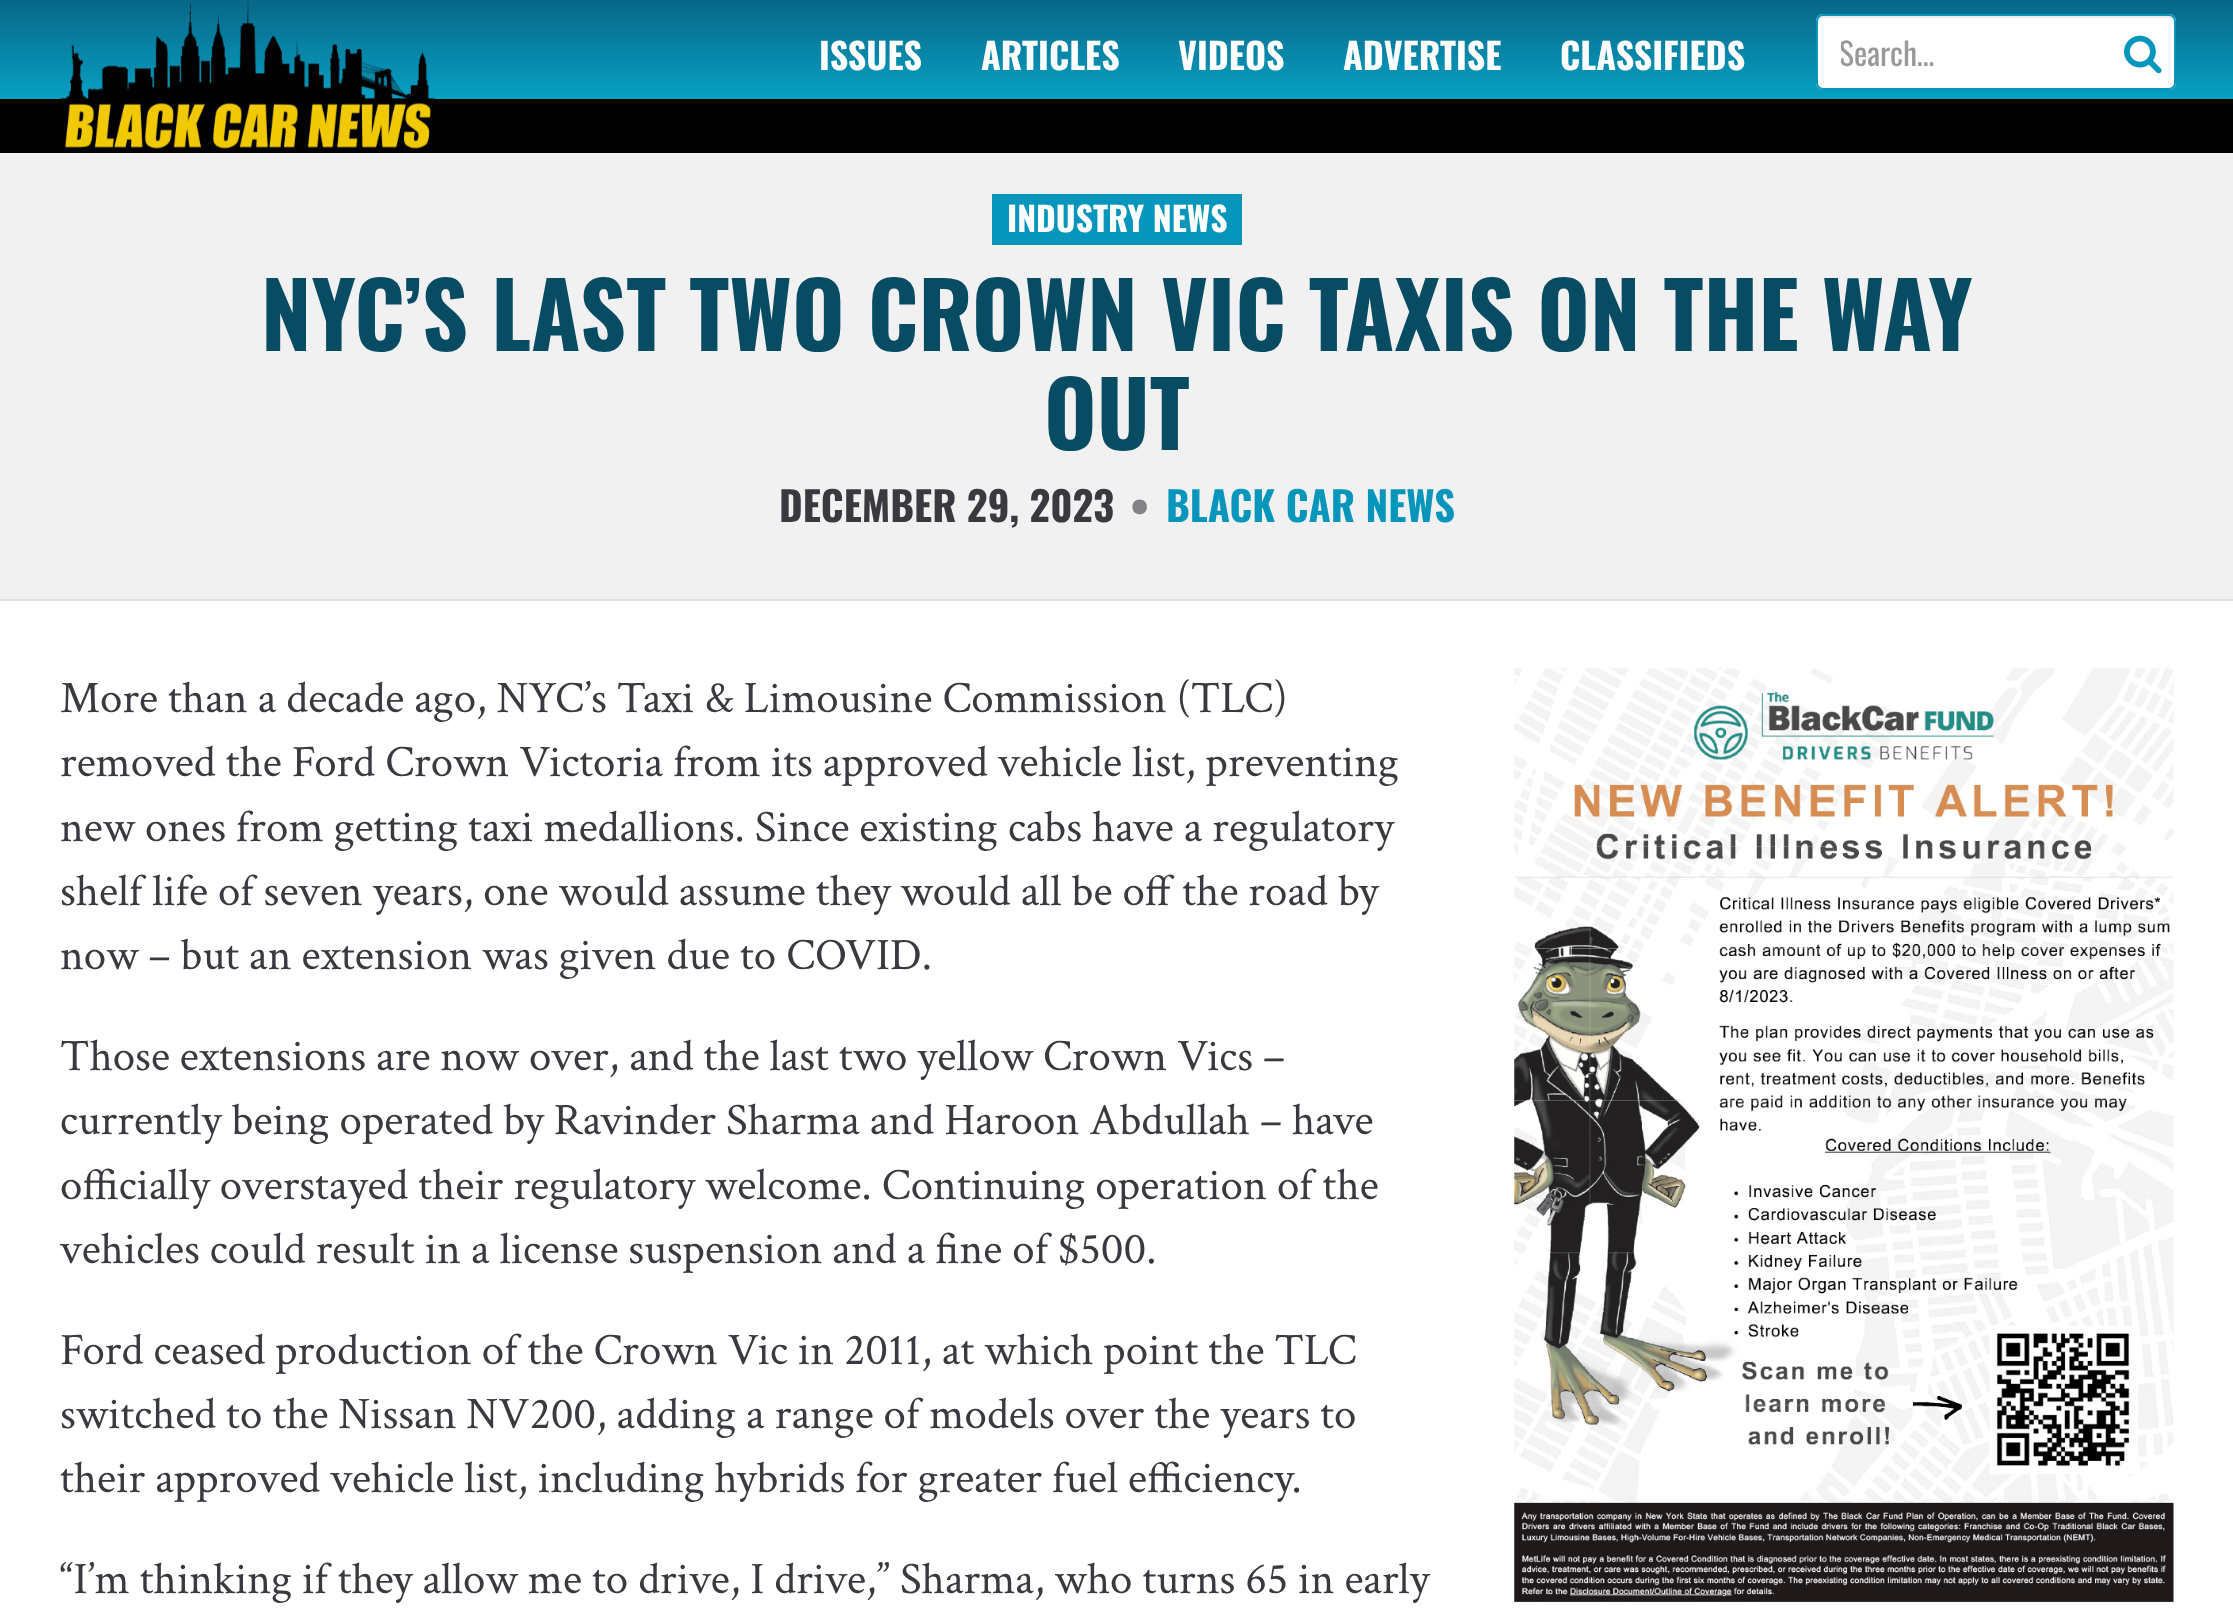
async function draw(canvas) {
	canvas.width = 2233;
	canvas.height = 1616;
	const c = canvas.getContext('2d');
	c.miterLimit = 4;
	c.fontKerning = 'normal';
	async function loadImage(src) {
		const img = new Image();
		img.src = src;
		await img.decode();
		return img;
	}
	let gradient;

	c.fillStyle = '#fff';
	c.fillRect(0, 0, 2233, 1616);
	gradient = c.createLinearGradient(1117, 0, 1117, 99);
	gradient.addColorStop(0, '#086788');
	gradient.addColorStop(0.99, '#07a0c3');
	c.fillStyle = gradient;
	c.fillRect(0, 0, 2233, 99);
	c.fillStyle = '#000';
	c.fillRect(0, 99, 2233, 54);
	c.drawImage(await loadImage('img1.png'), 60, 0, 375, 149);
	c.font = 'bold 36px Oswald';
	c.fillStyle = '#fff';
	for (const [text, x, y] of [
		['ISSUES', 819, 70],
		['ARTICLES', 981, 70],
		['VIDEOS', 1178, 70],
		['ADVERTISE', 1343, 70],
		['CLASSIFIEDS', 1560, 70],
	]) {
		c.fillText(text, x, y);
	}
	c.beginPath();
	c.roundRect(1816, 14, 360, 76, 7);
	c.fill();
	c.fillStyle = '#ececec';
	c.beginPath();
	c.moveTo(1822, 18);
	c.lineTo(2169, 18);
	c.bezierCurveTo(2171, 18, 2174, 20, 2174, 22);
	c.lineTo(2174, 21);
	c.bezierCurveTo(2174, 18, 2172, 16, 2169, 16);
	c.lineTo(1823, 16);
	c.bezierCurveTo(1820, 16, 1818, 18, 1818, 21);
	c.lineTo(1818, 22);
	c.bezierCurveTo(1818, 20, 1820, 18, 1822, 18);
	c.closePath();
	c.fill();
	c.beginPath();
	c.roundRect(1817, 15, 358, 74, 6);
	c.strokeStyle = '#0796bb';
	c.lineWidth = 2;
	c.stroke();
	c.save();
	c.beginPath();
	c.rect(1841, 29, 310, 48);
	c.clip();
	c.font = '31.5px Oswald';
	c.fillStyle = '#999';
	c.fillText('Search…', 1839, 66);
	c.restore();
	c.drawImage(await loadImage('img2.png'), 2124, 35, 38, 39);
	c.fillStyle = '#f1f1f1';
	c.fillRect(0, 153, 2233, 446);
	c.fillStyle = '#0796bb';
	c.fillRect(992, 194, 250, 51);
	c.font = 'bold 33.75px Oswald';
	c.fillStyle = '#fff';
	c.fillText('INDUSTRY NEWS', 1007, 232);
	c.font = 'bold 90px Oswald';
	c.fillStyle = '#084c64';
	c.fillText('NYC’S LAST TWO CROWN VIC TAXIS ON THE WAY', 261, 351);
	c.fillText('OUT', 1044, 450);
	c.font = 'bold 40.5px Oswald';
	c.fillStyle = '#393a40';
	c.fillText('DECEMBER 29, 2023', 779, 522);
	c.fillStyle = '#838387';
	c.fillText('•', 1130, 522);
	c.fillStyle = '#0796bb';
	c.fillText('BLACK CAR NEWS', 1166, 522);
	c.fillStyle = '#e1e1e2';
	c.fillRect(0, 599, 2233, 2);
	c.font = '45px Crimson Text';
	c.fillStyle = '#393a40';
	for (const [text, x, y] of [
		['More than a decade ago, NYC’s Taxi & Limousine Commission (TLC)', 60, 712],
		['removed the Ford Crown Victoria from its approved vehicle list, preventing', 60, 776],
		['new ones from getting taxi medallions. Since existing cabs have a regulatory', 60, 841],
		['shelf life of seven years, one would assume they would all be off the road by', 60, 905],
		['now – but an extension was given due to COVID.', 60, 969],
		['Those extensions are now over, and the last two yellow Crown Vics –', 60, 1070],
		['currently being operated by Ravinder Sharma and Haroon Abdullah – have', 60, 1134],
		['officially overstayed their regulatory welcome. Continuing operation of the', 60, 1199],
		['vehicles could result in a license suspension and a fine of $500.', 60, 1263],
		['Ford ceased production of the Crown Vic in 2011, at which point the TLC', 60, 1364],
		['switched to the Nissan NV200, adding a range of models over the years to', 60, 1428],
		['their approved vehicle list, including hybrids for greater fuel efficiency.', 60, 1492],
		['“I’m thinking if they allow me to drive, I drive,” Sharma, who turns 65 in early', 60, 1593],
	]) {
		c.fillText(text, x, y);
	}
	c.drawImage(await loadImage('img3.png'), 1514, 668, 660, 934);
}

draw(document.querySelector('canvas'));
